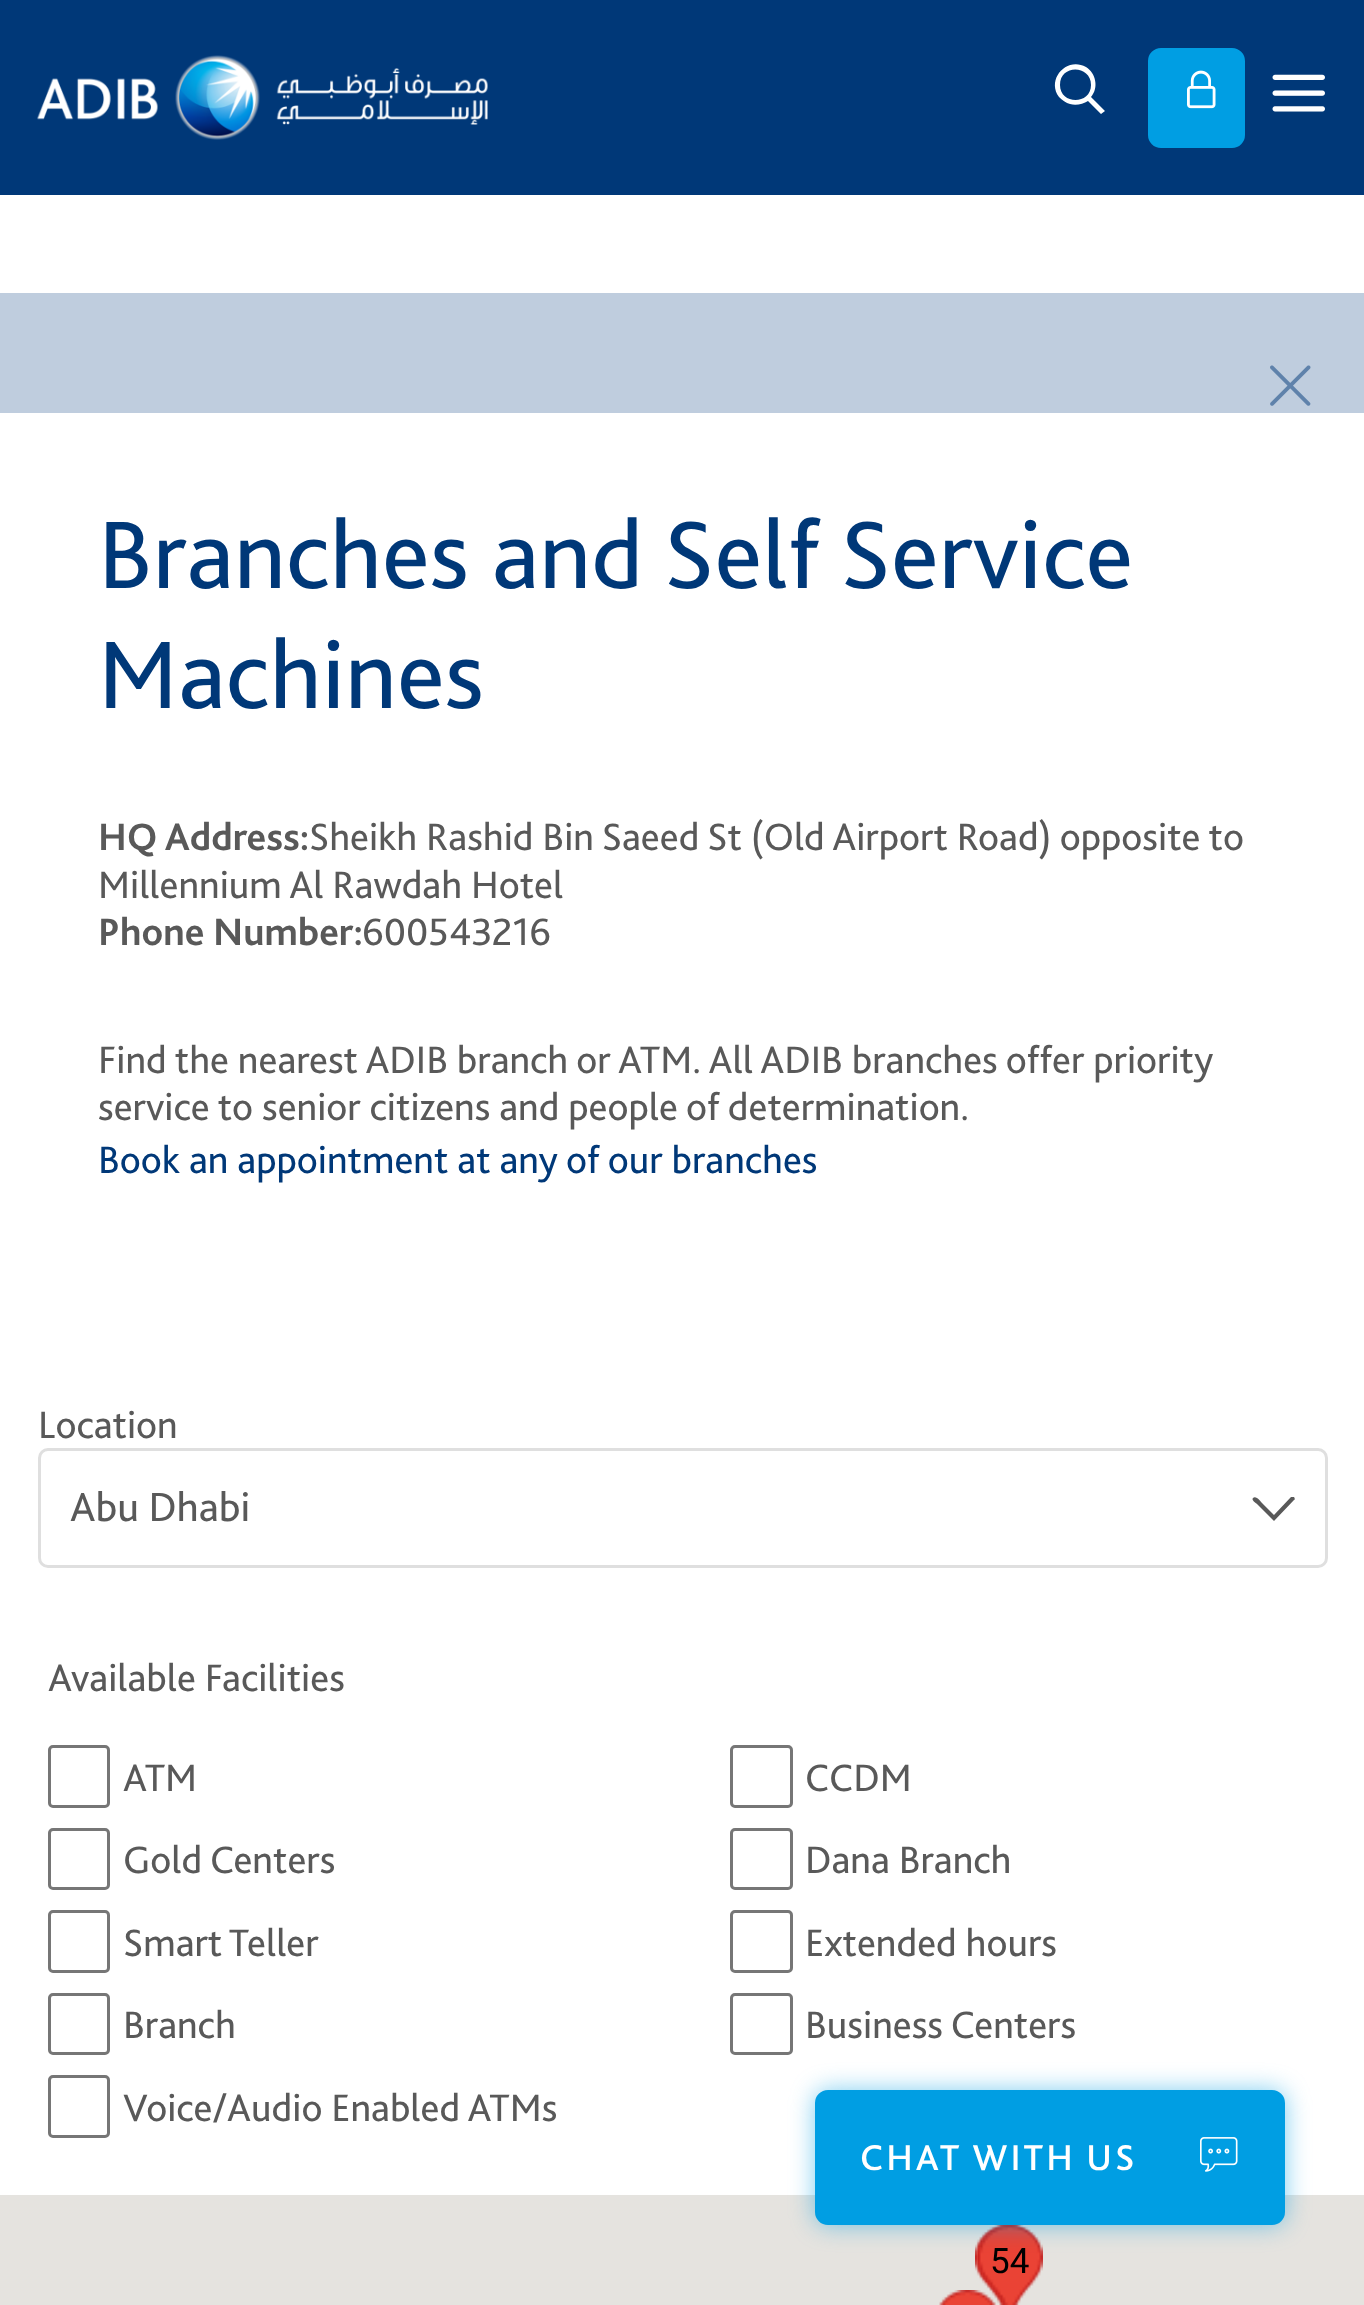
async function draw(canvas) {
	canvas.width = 1364;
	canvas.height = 2305;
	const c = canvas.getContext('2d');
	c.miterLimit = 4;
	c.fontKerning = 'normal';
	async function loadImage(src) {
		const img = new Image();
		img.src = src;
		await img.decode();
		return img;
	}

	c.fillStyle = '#fff';
	c.fillRect(0, 0, 1364, 2305);
	c.fillStyle = '#003878';
	c.fillRect(0, 0, 1364, 195);
	c.drawImage(await loadImage('img1.png'), 37, 55, 451, 85);
	c.fillStyle = '#fff';
	c.beginPath();
	c.moveTo(1088, 101);
	c.bezierCurveTo(1083, 104, 1076, 106, 1070, 104);
	c.bezierCurveTo(1066, 103, 1062, 100, 1059, 97);
	c.bezierCurveTo(1046, 79, 1067, 56, 1086, 67);
	c.bezierCurveTo(1096, 73, 1099, 88, 1091, 97);
	c.lineTo(1105, 111);
	c.lineTo(1101, 114);
	c.closePath();
	c.moveTo(1060, 85);
	c.bezierCurveTo(1060, 105, 1091, 105, 1091, 85);
	c.bezierCurveTo(1091, 65, 1060, 64, 1060, 85);
	c.closePath();
	c.fill();
	c.fillStyle = '#009ee3';
	c.beginPath();
	c.roundRect(1149.5, 49.5, 94, 97, 11.5);
	c.fill();
	c.strokeStyle = '#009ee3';
	c.lineWidth = 3;
	c.stroke();
	c.drawImage(await loadImage('img2.png'), 1187, 70, 29, 39);
	c.drawImage(await loadImage('img3.png'), 1272, 74, 53, 38);
	c.fillStyle = '#bfcdde';
	c.fillRect(0, 293, 1364, 120);
	c.drawImage(await loadImage('img4.png'), 1270, 365, 41, 41);
	c.letterSpacing = '0.4px';
	c.font = '100px "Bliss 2"';
	c.fillStyle = '#003878';
	c.fillText('Branches and Self Service', 98, 588);
	c.fillText('Machines', 98, 708);
	c.letterSpacing = '0px';
	c.font = 'bold 40px "Bliss 2"';
	c.fillStyle = '#595959';
	c.fillText('HQ Address:', 98, 850);
	c.font = '40px "Bliss 2"';
	c.fillText('Sheikh Rashid Bin Saeed St (Old Airport Road) opposite to', 309, 850);
	c.fillText('Millennium Al Rawdah Hotel', 98, 898);
	c.font = 'bold 40px "Bliss 2"';
	c.fillText('Phone Number:', 98, 945);
	c.font = '40px "Bliss 2"';
	for (const [text, x, y] of [
		['600543216', 362, 945],
		['Find the nearest ADIB branch or ATM. All ADIB branches offer priority', 98, 1073],
		['service to senior citizens and people of determination.', 98, 1120],
	]) {
		c.fillText(text, x, y);
	}
	c.fillStyle = '#003878';
	c.fillText('Book an appointment at any of our branches', 98, 1173);
	c.fillStyle = '#595959';
	c.fillText('Location', 38, 1438);
	c.beginPath();
	c.moveTo(1294, 1500);
	c.bezierCurveTo(1295, 1500, 1295, 1498, 1294, 1497);
	c.bezierCurveTo(1294, 1497, 1292, 1497, 1291, 1497);
	c.lineTo(1274, 1515);
	c.lineTo(1262, 1503);
	c.bezierCurveTo(1261, 1502, 1256, 1495, 1253, 1498);
	c.bezierCurveTo(1251, 1500, 1256, 1503, 1257, 1504);
	c.lineTo(1274, 1521);
	c.closePath();
	c.fill();
	c.beginPath();
	c.roundRect(39.5, 1449.5, 1287, 117, 8.5);
	c.strokeStyle = '#dfdfdf';
	c.stroke();
	c.font = '42.5px "Bliss 2"';
	c.fillText('Abu Dhabi', 70, 1521);
	c.font = '40px "Bliss 2"';
	c.fillText('Available Facilities', 48, 1691);
	c.beginPath();
	c.roundRect(49.5, 1746.5, 59, 60, 3.5);
	c.strokeStyle = '#767676';
	c.stroke();
	c.fillText('ATM', 123, 1791);
	c.beginPath();
	c.roundRect(731.5, 1746.5, 60, 60, 3.5);
	c.stroke();
	c.fillText('CCDM', 805, 1791);
	c.beginPath();
	c.roundRect(49.5, 1829.5, 59, 59, 3.5);
	c.stroke();
	c.fillText('Gold Centers', 123, 1873);
	c.beginPath();
	c.roundRect(731.5, 1829.5, 60, 59, 3.5);
	c.stroke();
	c.fillText('Dana Branch', 805, 1873);
	c.beginPath();
	c.roundRect(49.5, 1911.5, 59, 60, 3.5);
	c.stroke();
	c.fillText('Smart Teller', 123, 1956);
	c.beginPath();
	c.roundRect(731.5, 1911.5, 60, 60, 3.5);
	c.stroke();
	c.fillText('Extended hours', 805, 1956);
	c.beginPath();
	c.roundRect(49.5, 1994.5, 59, 59, 3.5);
	c.stroke();
	c.fillText('Branch', 123, 2038);
	c.beginPath();
	c.roundRect(731.5, 1994.5, 60, 59, 3.5);
	c.stroke();
	c.fillText('Business Centers', 805, 2038);
	c.beginPath();
	c.roundRect(49.5, 2076.5, 59, 60, 3.5);
	c.stroke();
	c.fillText('Voice/Audio Enabled ATMs', 123, 2121);
	c.fillStyle = '#e5e3df';
	c.fillRect(0, 2195, 1364, 110);
	c.drawImage(await loadImage('img5.png'), 975, 2225, 65, 80);
	c.drawImage(await loadImage('img6.png'), 978, 2225, 65, 80);
	c.font = '35px Roboto';
	c.fillStyle = '#000';
	c.fillText('54', 990, 2273);
	c.drawImage(await loadImage('img7.png'), 939, 2290, 57, 15);
	c.fillStyle = '#009ee380';
	c.filter = 'blur(12.5px)';
	c.beginPath();
	c.roundRect(815, 2090, 470, 135, 13);
	c.fill();
	c.filter = 'none';
	c.fillStyle = '#009ee3';
	c.beginPath();
	c.roundRect(816.5, 2091.5, 467, 132, 11.5);
	c.fill();
	c.strokeStyle = '#009ee3';
	c.stroke();
	c.letterSpacing = '3.1px';
	c.font = '500 37.5px "Bliss 2"';
	c.fillStyle = '#fff';
	c.fillText('CHAT WITH US', 860, 2170);
	c.drawImage(await loadImage('img8.png'), 1200, 2137, 38, 35);
}

draw(document.querySelector('canvas'));
